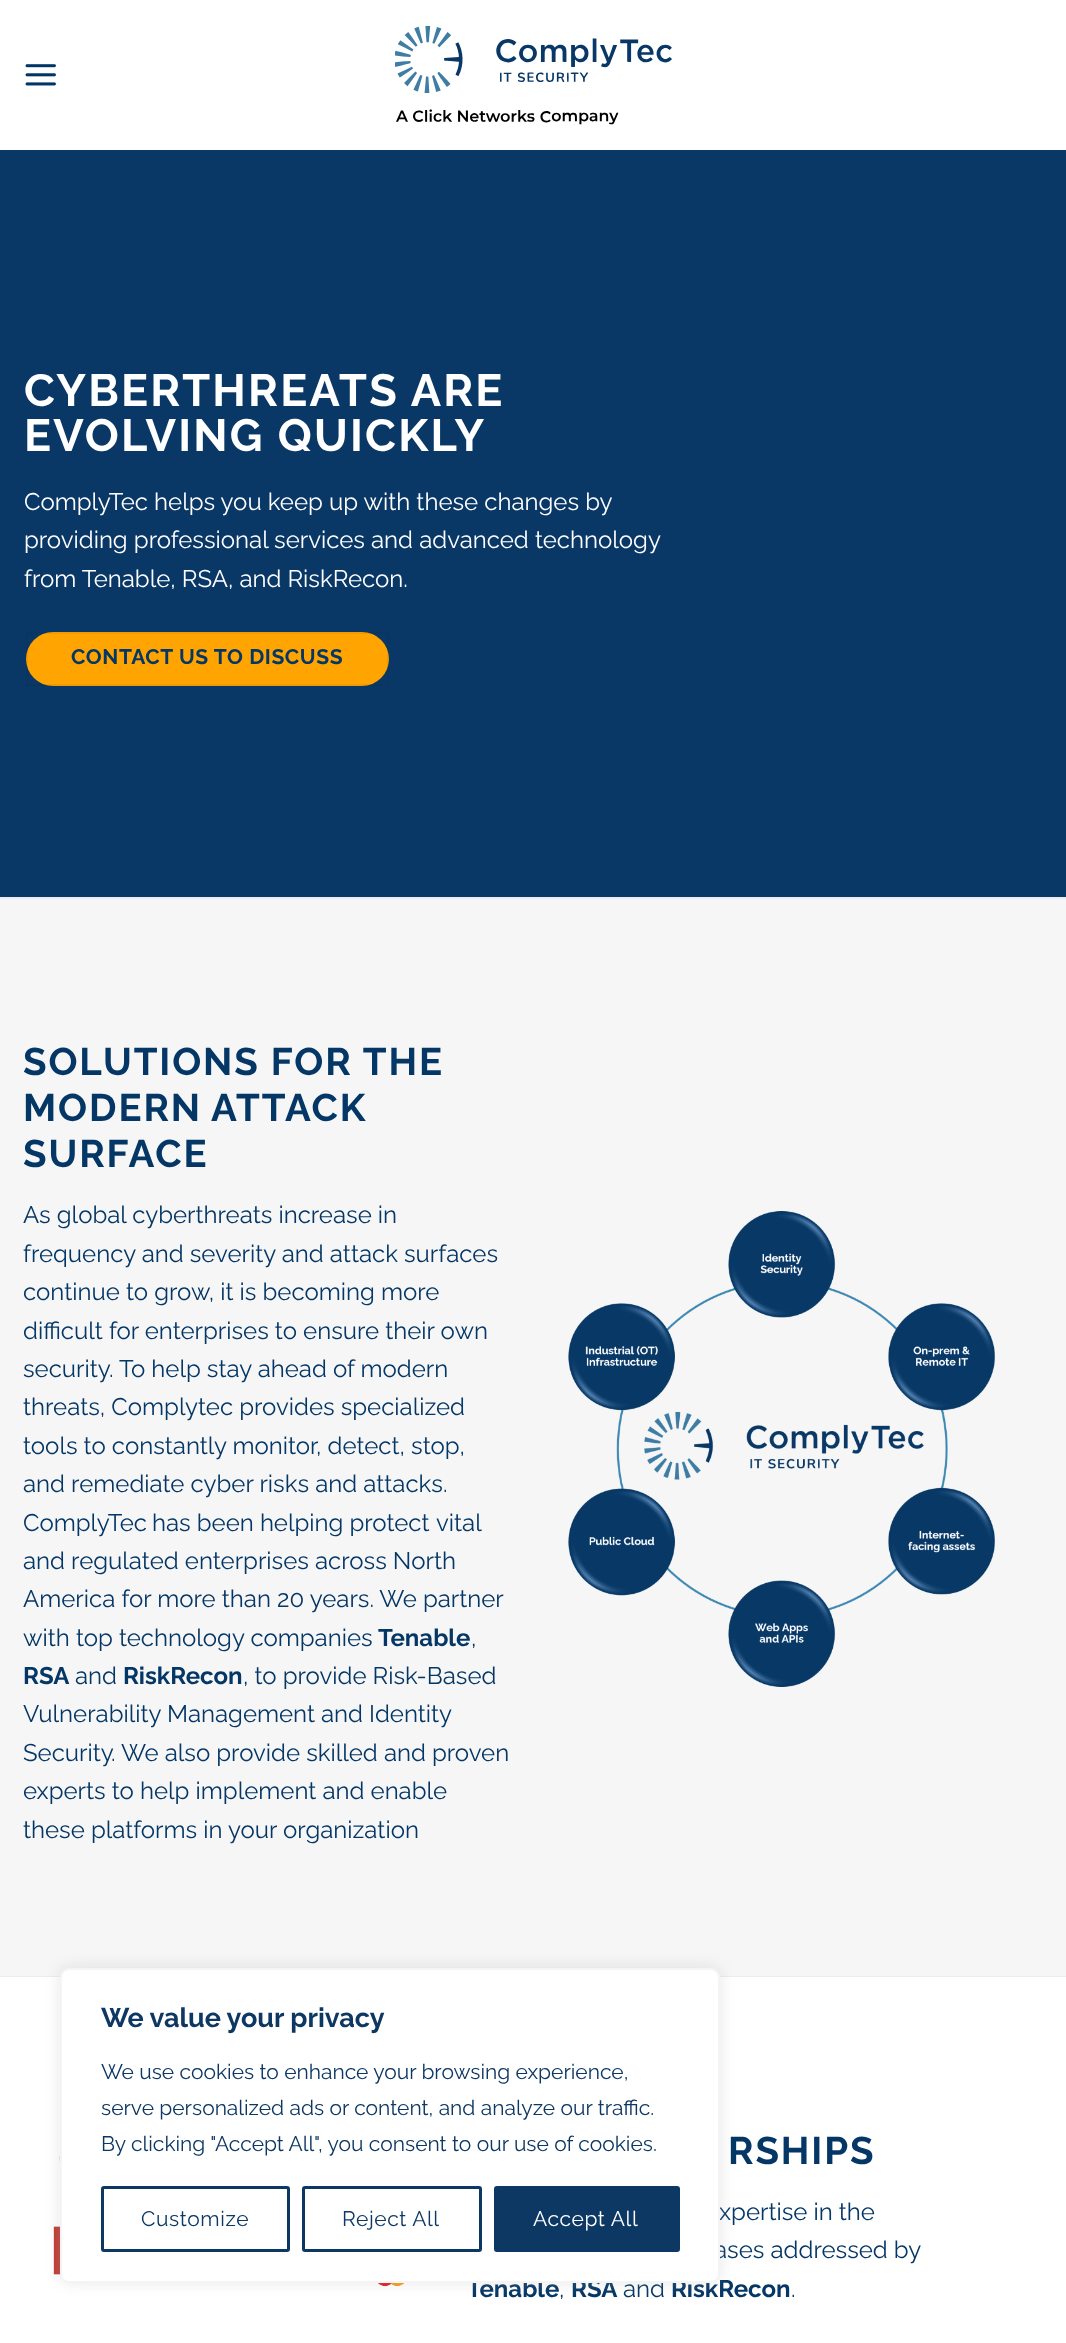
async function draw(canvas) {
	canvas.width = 1066;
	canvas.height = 2343;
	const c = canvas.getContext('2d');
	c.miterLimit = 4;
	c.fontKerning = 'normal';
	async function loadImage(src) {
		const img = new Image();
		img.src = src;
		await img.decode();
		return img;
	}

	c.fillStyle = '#fff';
	c.fillRect(0, 0, 1066, 2343);
	c.drawImage(await loadImage('img1.png'), 25, 64, 31, 22);
	c.drawImage(await loadImage('img2.png'), 395, 26, 277, 99);
	c.fillStyle = '#0a3866';
	c.fillRect(0, 150, 1066, 747);
	c.letterSpacing = '2.25px';
	c.font = 'bold 45px Raleway';
	c.fillStyle = '#fff';
	c.fillText('CYBERTHREATS ARE', 24, 406);
	c.fillText('EVOLVING QUICKLY', 24, 451);
	c.letterSpacing = '0px';
	c.font = '24px Raleway';
	for (const [text, x, y] of [
		['ComplyTec helps you keep up with these changes by', 24, 510],
		['providing professional services and advanced technology', 24, 548],
		['from Tenable, RSA, and RiskRecon.', 24, 587],
	]) {
		c.fillText(text, x, y);
	}
	c.fillStyle = '#ffa400';
	c.beginPath();
	c.roundRect(26, 632, 363, 54, 27);
	c.fill();
	c.strokeStyle = '#0000000d';
	c.lineWidth = 2;
	c.strokeRect(27, 633, 361, 52);
	c.letterSpacing = '0.6px';
	c.font = 'bold 21px Raleway';
	c.fillStyle = '#053766';
	c.fillText('CONTACT US TO DISCUSS', 71, 664);
	for (const [x, y, w, h, color] of [
		[0, 897, 1066, 2, '#ececec'],
		[0, 1976, 1066, 1, '#ececec'],
		[0, 899, 1066, 1077, '#f6f6f6'],
	]) {
		c.fillStyle = color;
		c.fillRect(x, y, w, h);
	}
	c.letterSpacing = '1.9px';
	c.font = 'bold 38.4px Raleway';
	c.fillStyle = '#053766';
	c.fillText('SOLUTIONS FOR THE', 23, 1075);
	c.wordSpacing = '-1px';
	c.fillText('MODERN ATTACK', 23, 1121);
	c.wordSpacing = '0px';
	c.fillText('SURFACE', 23, 1167);
	c.letterSpacing = '0px';
	c.font = '24px Raleway';
	for (const [text, x, y] of [
		['As global cyberthreats increase in', 23, 1223],
		['frequency and severity and attack surfaces', 23, 1262],
		['continue to grow, it is becoming more', 23, 1300],
		['difficult for enterprises to ensure their own', 23, 1339],
		['security. To help stay ahead of modern', 23, 1377],
		['threats, Complytec provides specialized', 23, 1415],
		['tools to constantly monitor', 23, 1454],
		[', detect, stop,', 316, 1454],
		['and remediate cyber risks and attacks.', 23, 1492],
		['ComplyTec', 23, 1531],
		['has been helping protect', 152, 1531],
		['vital', 436, 1531],
		['and regulated enterprises across North', 23, 1569],
		['America for more than 20 years. We partner', 23, 1607],
		['with top technology companies', 23, 1646],
	]) {
		c.fillText(text, x, y);
	}
	c.font = 'bold 24px Raleway';
	c.fillText('Tenable', 378, 1646);
	c.font = '24px Raleway';
	c.fillText(',', 471, 1646);
	c.font = 'bold 24px Raleway';
	c.fillText('RSA', 23, 1684);
	c.font = '24px Raleway';
	c.fillText('and', 75, 1684);
	c.font = 'bold 24px Raleway';
	c.fillText('RiskRecon', 123, 1684);
	c.font = '24px Raleway';
	for (const [text, x, y] of [
		[', to provide Risk-Based', 243, 1684],
		['Vulnerability Management', 23, 1722],
		['and Identity', 321, 1722],
		['Security', 23, 1761],
		['.', 111, 1761],
		['We also provide skilled and proven', 121, 1761],
		['experts to help implement and enable', 23, 1799],
		['these platforms in your organization', 23, 1838],
	]) {
		c.fillText(text, x, y);
	}
	c.drawImage(await loadImage('img3.png'), 568, 1211, 427, 476);
	c.drawImage(await loadImage('img4.png'), 59, 2155, 1, 6);
	c.drawImage(await loadImage('img5.png'), 53, 2226, 8, 49);
	c.drawImage(await loadImage('img6.png'), 378, 2283, 26, 4);
	c.letterSpacing = '1.9px';
	c.font = 'bold 38.4px Raleway';
	c.fillText('RSHIPS', 728, 2164);
	c.letterSpacing = '0px';
	c.font = '24px Raleway';
	c.fillText('xpertise in the', 719, 2220);
	c.fillText('ases addressed by', 714, 2258);
	c.font = 'bold 24px Raleway';
	c.fillText('Tenable', 467, 2297);
	c.font = '24px Raleway';
	c.fillText(',', 559, 2297);
	c.font = 'bold 24px Raleway';
	c.fillText('RSA', 571, 2297);
	c.font = '24px Raleway';
	c.fillText('and', 623, 2297);
	c.font = 'bold 24px Raleway';
	c.fillText('RiskRecon', 671, 2297);
	c.font = '24px Raleway';
	c.fillText('.', 791, 2297);
	c.fillStyle = '#acabab4d';
	c.filter = 'blur(7.5px)';
	c.beginPath();
	c.roundRect(60, 1967, 660, 315, 9);
	c.fill();
	c.filter = 'none';
	c.fillStyle = '#fff';
	c.beginPath();
	c.roundRect(61, 1969, 658, 313, 8);
	c.fill();
	c.strokeStyle = '#f4f4f4';
	c.stroke();
	c.font = 'bold 27px Raleway';
	c.fillStyle = '#0d3863';
	c.fillText('We value your privacy', 101, 2027);
	c.font = '21px Raleway';
	for (const [text, x, y] of [
		['We use cookies to enhance your browsing experience,', 101, 2079],
		['serve personalized ads or content, and analyze our traffic.', 101, 2115],
		['By clicking "Accept All", you consent to our use of cookies.', 101, 2151],
	]) {
		c.fillText(text, x, y);
	}
	c.beginPath();
	c.roundRect(102.5, 2187.5, 186, 63, 1.5);
	c.strokeStyle = '#0d3863';
	c.lineWidth = 3;
	c.stroke();
	c.letterSpacing = '0.6px';
	c.fillText('Customize', 141, 2226);
	c.beginPath();
	c.roundRect(303.5, 2187.5, 177, 63, 1.5);
	c.stroke();
	c.fillText('Reject All', 342, 2226);
	c.beginPath();
	c.roundRect(495.5, 2187.5, 183, 63, 1.5);
	c.fill();
	c.stroke();
	c.fillStyle = '#fff';
	c.fillText('Accept All', 533, 2226);
}

draw(document.querySelector('canvas'));
